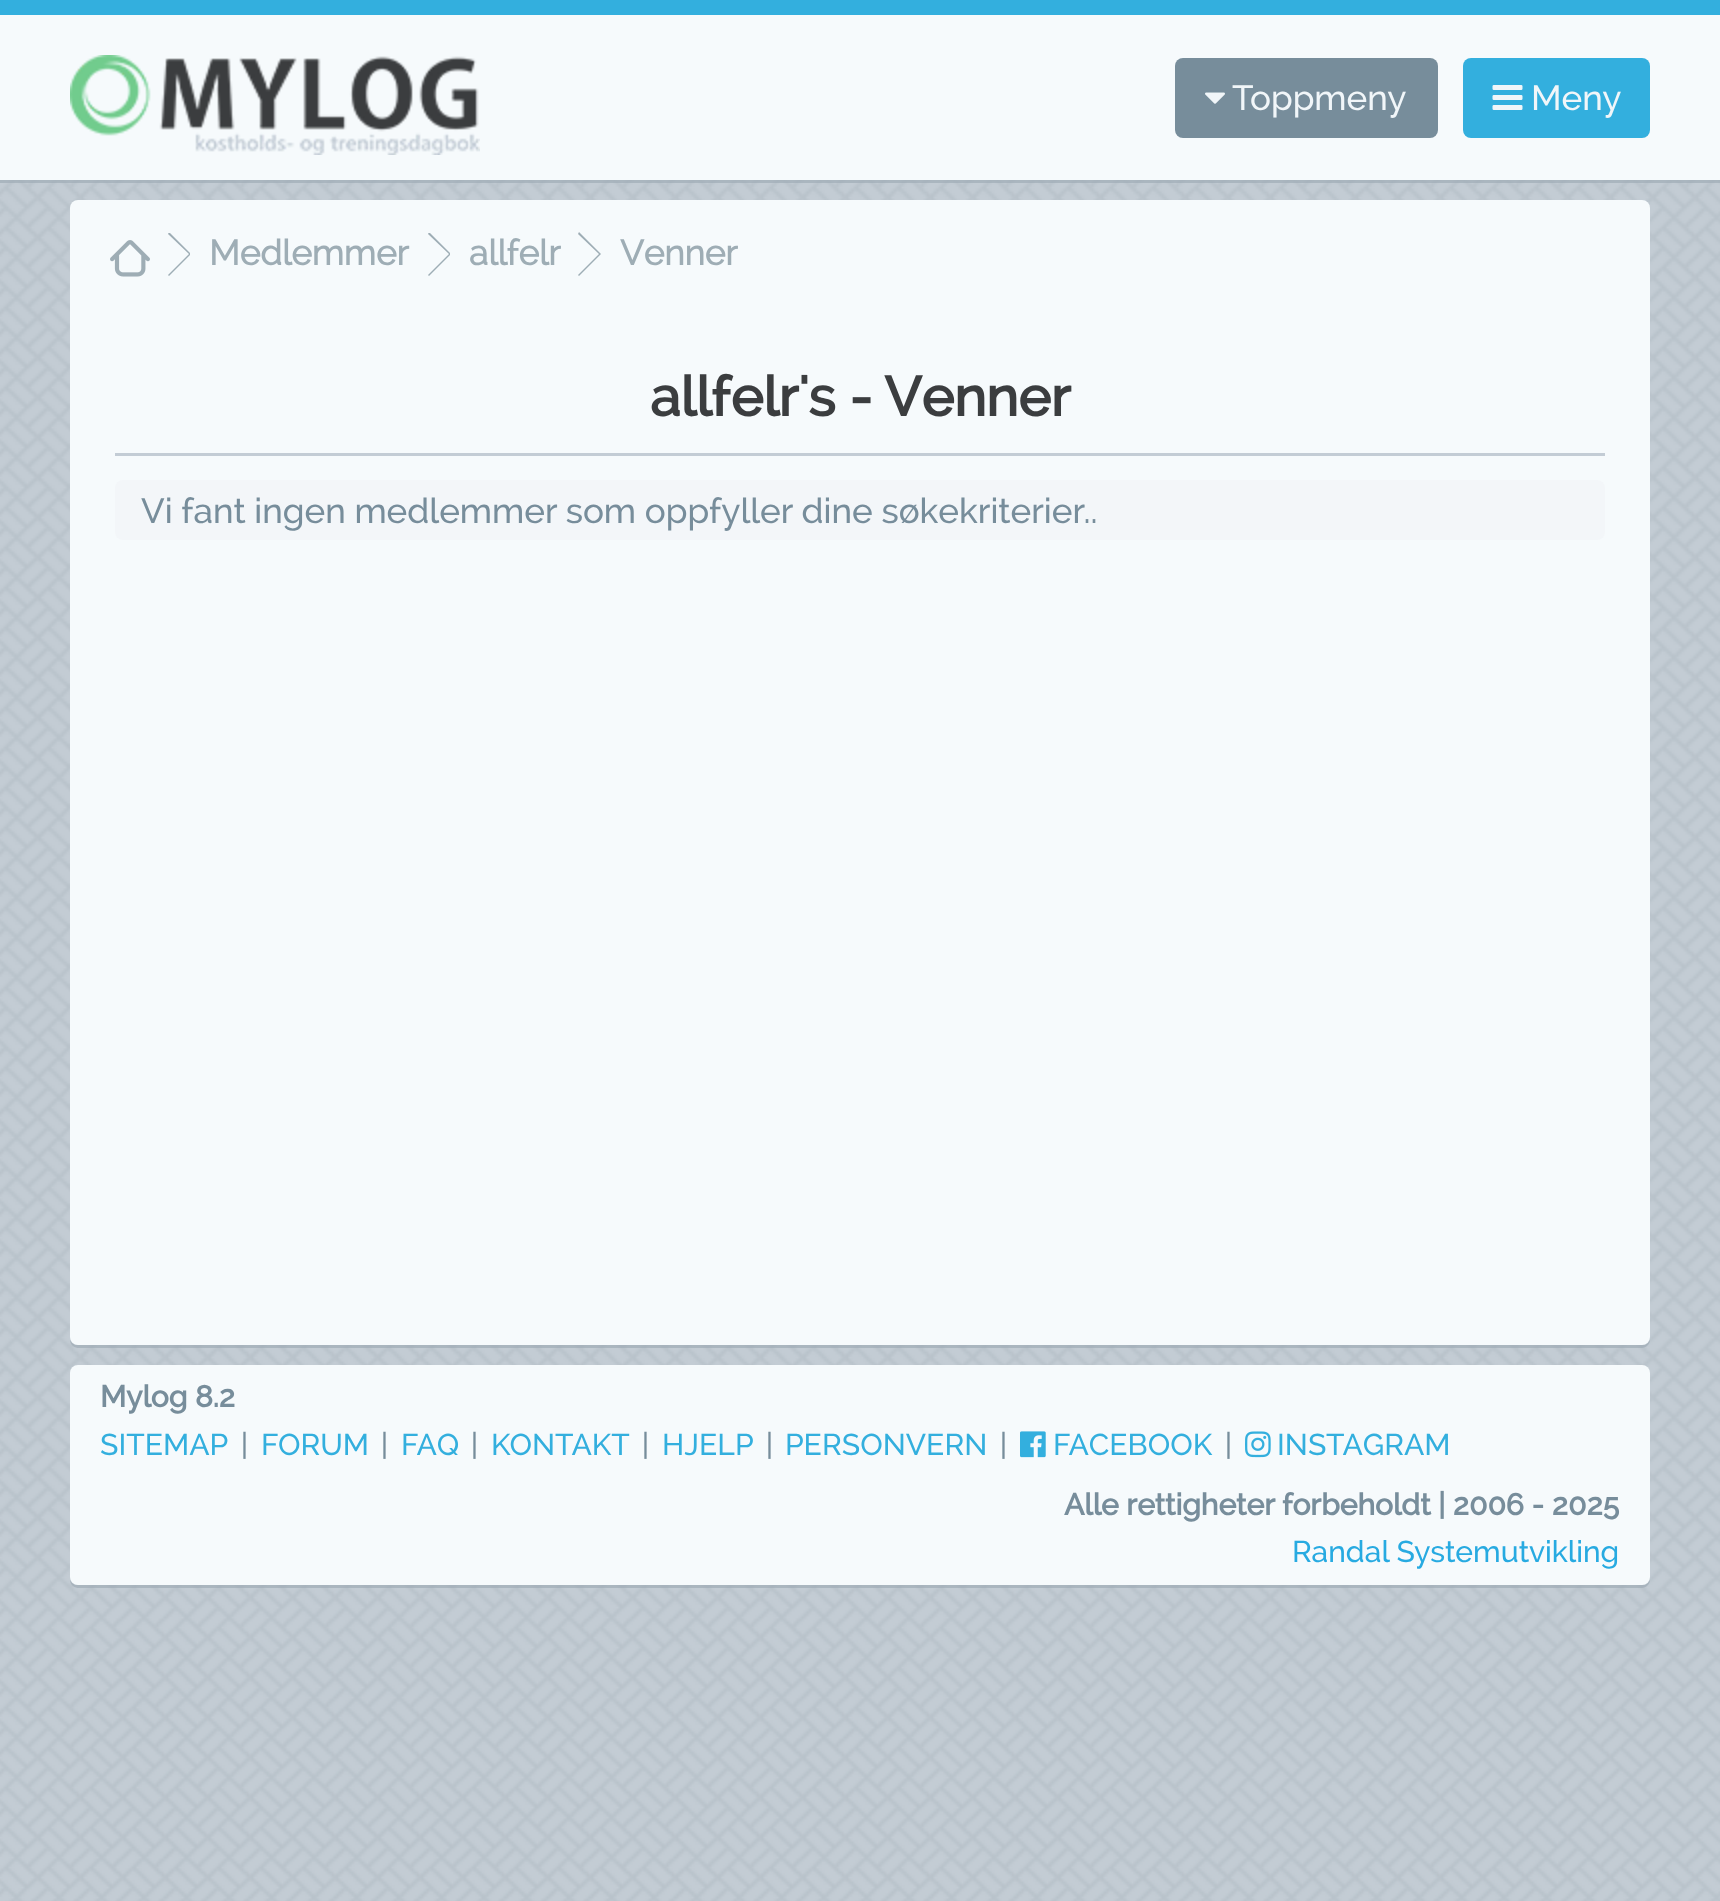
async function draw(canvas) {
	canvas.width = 1720;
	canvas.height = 1901;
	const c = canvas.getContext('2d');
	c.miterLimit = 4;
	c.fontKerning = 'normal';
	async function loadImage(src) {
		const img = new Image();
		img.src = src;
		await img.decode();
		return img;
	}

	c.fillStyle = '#fff';
	c.fillRect(0, 0, 1720, 1901);
	c.drawImage(await loadImage('img1.png'), 0, 180, 1720, 1721);
	for (const [x, y, w, h, color] of [
		[0, 180, 1720, 3, '#9facb7b3'],
		[0, 15, 1720, 165, '#f6fafc'],
		[0, 0, 1720, 15, '#33afde'],
	]) {
		c.fillStyle = color;
		c.fillRect(x, y, w, h);
	}
	c.drawImage(await loadImage('img2.png'), 70, 55, 410, 100);
	c.fillStyle = '#778d9b';
	c.beginPath();
	c.roundRect(1175, 58, 263, 80, 8);
	c.fill();
	c.drawImage(await loadImage('img3.png'), 1205, 92, 20, 12);
	c.font = '500 35px Raleway';
	c.fillStyle = '#f1f6f9';
	c.fillText('Toppmeny', 1232, 110);
	c.fillStyle = '#33afde';
	c.beginPath();
	c.roundRect(1463, 58, 187, 80, 8);
	c.fill();
	c.drawImage(await loadImage('img4.png'), 1492, 85, 31, 25);
	c.fillStyle = '#f1f6f9';
	c.fillText('Meny', 1531, 110);
	c.fillStyle = '#f6fafc';
	c.beginPath();
	c.roundRect(70, 200, 1580, 88, [8, 8, 0, 0]);
	c.fill();
	c.drawImage(await loadImage('img5.png'), 110, 240, 40, 37);
	c.save();
	c.beginPath();
	c.rect(168, 233, 22, 45);
	c.clip();
	c.fillStyle = '#9eadb5';
	c.beginPath();
	c.moveTo(168, 275);
	c.lineTo(189, 254);
	c.lineTo(168, 234);
	c.lineTo(169, 232);
	c.lineTo(191, 254);
	c.lineTo(169, 276);
	c.closePath();
	c.fill();
	c.restore();
	c.font = 'bold 35px "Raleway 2"';
	c.fillStyle = '#9eadb5';
	c.fillText('Medlemmer', 209, 265);
	c.save();
	c.beginPath();
	c.rect(428, 233, 22, 45);
	c.clip();
	c.beginPath();
	c.moveTo(428, 275);
	c.lineTo(449, 254);
	c.lineTo(428, 234);
	c.lineTo(429, 232);
	c.lineTo(451, 254);
	c.lineTo(429, 276);
	c.closePath();
	c.fill();
	c.restore();
	c.fillText('allfelr', 469, 265);
	c.beginPath();
	c.moveTo(578, 275);
	c.lineTo(599, 254);
	c.lineTo(578, 234);
	c.lineTo(579, 232);
	c.lineTo(601, 254);
	c.lineTo(579, 276);
	c.closePath();
	c.fill();
	c.fillText('Venner', 620, 265);
	c.fillStyle = '#9facb7b3';
	c.beginPath();
	c.moveTo(70, 1338);
	c.lineTo(70, 1340);
	c.bezierCurveTo(70, 1344, 74, 1348, 78, 1348);
	c.lineTo(1642, 1348);
	c.bezierCurveTo(1646, 1348, 1650, 1344, 1650, 1340);
	c.lineTo(1650, 1338);
	c.bezierCurveTo(1650, 1342, 1647, 1345, 1642, 1345);
	c.lineTo(78, 1345);
	c.bezierCurveTo(73, 1345, 70, 1342, 70, 1338);
	c.closePath();
	c.fill();
	c.fillStyle = '#f6fafc';
	c.beginPath();
	c.roundRect(70, 288, 1580, 1057, [0, 0, 8, 8]);
	c.fill();
	c.fillStyle = '#c3ccd5';
	c.fillRect(115, 453, 1490, 3);
	c.font = 'bold 55px Raleway';
	c.fillStyle = '#3b3d3f';
	c.fillText('allfelr\'s - Venner', 650, 416);
	c.fillStyle = '#f3f6f9';
	c.beginPath();
	c.roundRect(115, 480, 1490, 60, 8);
	c.fill();
	c.font = '500 35px Raleway';
	c.fillStyle = '#778d9b';
	c.fillText('Vi fant ingen medlemmer som oppfyller dine søkekriterier..', 141, 523);
	c.fillStyle = '#9facb7b3';
	c.beginPath();
	c.moveTo(70, 1578);
	c.lineTo(70, 1580);
	c.bezierCurveTo(70, 1584, 74, 1588, 78, 1588);
	c.lineTo(1642, 1588);
	c.bezierCurveTo(1646, 1588, 1650, 1584, 1650, 1580);
	c.lineTo(1650, 1578);
	c.bezierCurveTo(1650, 1582, 1647, 1585, 1642, 1585);
	c.lineTo(78, 1585);
	c.bezierCurveTo(73, 1585, 70, 1582, 70, 1578);
	c.closePath();
	c.fill();
	c.fillStyle = '#f6fafc';
	c.beginPath();
	c.roundRect(70, 1365, 1580, 220, 8);
	c.fill();
	c.font = 'bold 30px Raleway';
	c.fillStyle = '#778d9b';
	c.fillText('Mylog 8.2', 100, 1407);
	c.font = '500 30px Raleway';
	c.fillStyle = '#33afde';
	c.fillText('SITEMAP', 100, 1455);
	c.fillStyle = '#778d9b';
	c.fillText('|', 241, 1455);
	c.fillStyle = '#33afde';
	c.fillText('FORUM', 261, 1455);
	c.fillStyle = '#778d9b';
	c.fillText('|', 381, 1455);
	c.fillStyle = '#33afde';
	c.fillText('FAQ', 401, 1455);
	c.fillStyle = '#778d9b';
	c.fillText('|', 471, 1455);
	c.fillStyle = '#33afde';
	c.fillText('KONTAKT', 491, 1455);
	c.fillStyle = '#778d9b';
	c.fillText('|', 642, 1455);
	c.fillStyle = '#33afde';
	c.fillText('HJELP', 662, 1455);
	c.fillStyle = '#778d9b';
	c.fillText('|', 766, 1455);
	c.fillStyle = '#33afde';
	c.fillText('PERSONVERN', 785, 1455);
	c.fillStyle = '#778d9b';
	c.fillText('|', 1000, 1455);
	c.drawImage(await loadImage('img6.png'), 1020, 1431, 26, 27);
	c.fillStyle = '#33afde';
	c.fillText('FACEBOOK', 1053, 1455);
	c.fillStyle = '#778d9b';
	c.fillText('|', 1225, 1455);
	c.drawImage(await loadImage('img7.png'), 1245, 1431, 26, 27);
	c.fillStyle = '#33afde';
	c.fillText('INSTAGRAM', 1277, 1455);
	c.font = 'bold 30px Raleway';
	c.fillStyle = '#778d9b';
	c.fillText('Alle rettigheter forbeholdt | 2006 - 2025', 1064, 1515);
	c.font = '500 30px Raleway';
	c.fillStyle = '#27aae1';
	c.fillText('Randal Systemutvikling', 1292, 1562);
}

draw(document.querySelector('canvas'));
